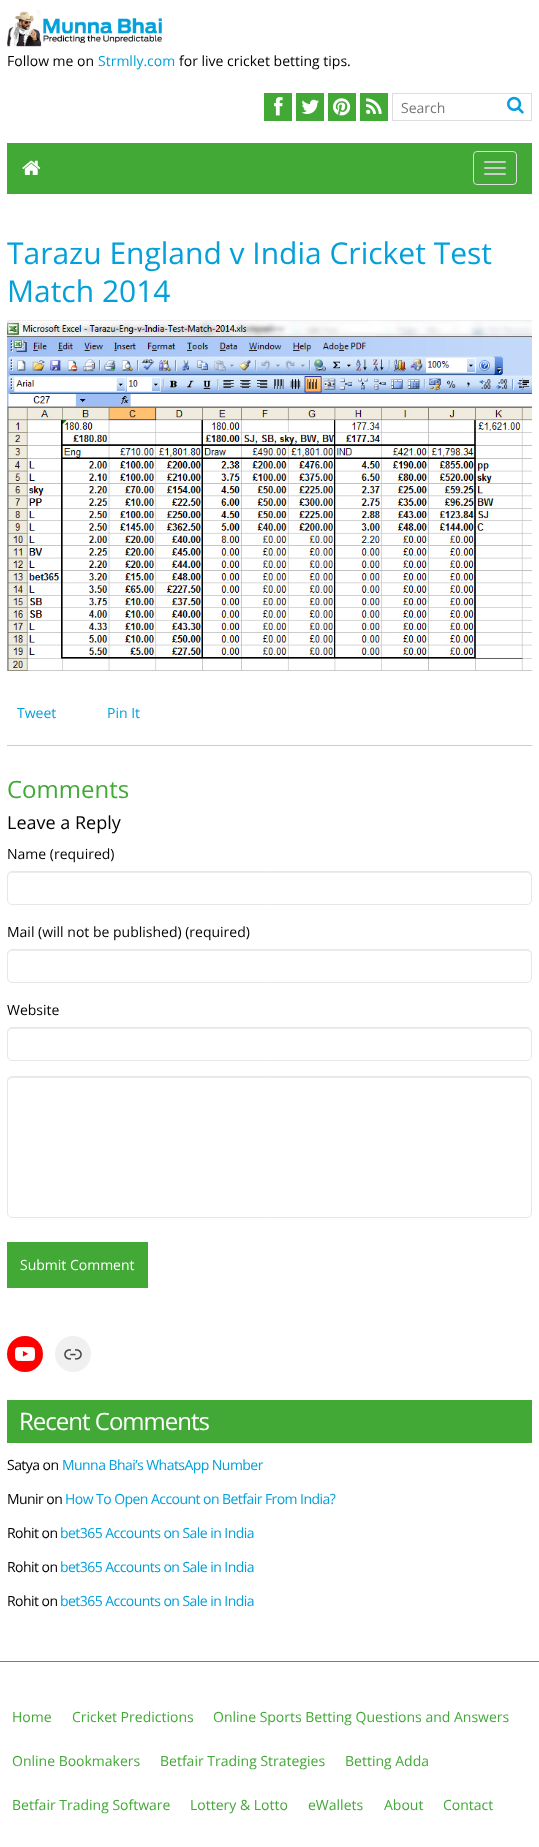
async function draw(canvas) {
	canvas.width = 539;
	canvas.height = 1847;
	const c = canvas.getContext('2d');
	c.miterLimit = 4;
	c.fontKerning = 'normal';
	async function loadImage(src) {
		const img = new Image();
		img.src = src;
		await img.decode();
		return img;
	}

	c.fillStyle = '#fff';
	c.fillRect(0, 0, 539, 1847);
	c.drawImage(await loadImage('img1.png'), 7, 10, 155, 37);
	c.font = '14px Open Sans';
	c.fillStyle = '#000';
	c.fillText('Follow me on', 7, 66);
	c.fillStyle = '#03a0da';
	c.fillText('Strmlly.com', 98, 66);
	c.fillStyle = '#000';
	c.fillText('for live cricket betting tips.', 179, 66);
	c.fillStyle = '#42a937';
	c.fillRect(264, 93, 28, 28);
	c.drawImage(await loadImage('img2.png'), 274, 97, 9, 19);
	c.fillRect(296, 93, 28, 28);
	c.drawImage(await loadImage('img3.png'), 301, 99, 18, 15);
	c.fillRect(328, 93, 28, 28);
	c.drawImage(await loadImage('img4.png'), 333, 98, 18, 18);
	c.fillRect(360, 93, 28, 28);
	c.drawImage(await loadImage('img5.png'), 366, 98, 16, 16);
	c.strokeStyle = '#ddd';
	c.strokeRect(392.5, 93.5, 139, 27);
	c.fillStyle = '#757575';
	c.fillText('Search', 401, 113);
	c.drawImage(await loadImage('img6.png'), 507, 96, 17, 18);
	c.fillStyle = '#42a937';
	c.fillRect(7, 143, 525, 51);
	c.drawImage(await loadImage('img7.png'), 22, 160, 19, 15);
	c.beginPath();
	c.roundRect(473.5, 151.5, 43, 33, 3.5);
	c.stroke();
	c.fillStyle = '#ccc';
	c.beginPath();
	c.roundRect(484, 161, 22, 2, 1);
	c.fill();
	c.beginPath();
	c.roundRect(484, 167, 22, 2, 1);
	c.fill();
	c.beginPath();
	c.roundRect(484, 173, 22, 2, 1);
	c.fill();
	c.font = '30px Open Sans';
	c.fillStyle = '#03a0da';
	c.fillText('Tarazu England v India Cricket Test', 7, 264);
	c.fillText('Match 2014', 7, 302);
	c.drawImage(await loadImage('img8.png'), 7, 320, 525, 351);
	c.font = '14px Open Sans';
	c.fillText('Tweet', 17, 718);
	c.fillText('Pin It', 107, 718);
	c.fillStyle = '#ccc';
	c.fillRect(7, 745, 525, 1);
	c.font = '24px Open Sans';
	c.fillStyle = '#42a937';
	c.fillText('Comments', 7, 798);
	c.font = '18px Open Sans';
	c.fillStyle = '#000';
	c.fillText('Leave a Reply', 7, 829);
	c.font = '14px Open Sans';
	c.fillText('Name (required)', 7, 859);
	c.fillStyle = '#ececec';
	c.beginPath();
	c.moveTo(12, 873);
	c.lineTo(527, 873);
	c.bezierCurveTo(529, 873, 531, 875, 531, 877);
	c.lineTo(531, 876);
	c.bezierCurveTo(531, 874, 529, 872, 527, 872);
	c.lineTo(12, 872);
	c.bezierCurveTo(10, 872, 8, 874, 8, 876);
	c.lineTo(8, 877);
	c.bezierCurveTo(8, 875, 10, 873, 12, 873);
	c.closePath();
	c.fill();
	c.beginPath();
	c.roundRect(7.5, 871.5, 524, 33, 4.5);
	c.strokeStyle = '#e7e7e7';
	c.stroke();
	c.fillStyle = '#000';
	c.fillText('Mail (will not be published) (required)', 7, 937);
	c.fillStyle = '#ececec';
	c.beginPath();
	c.moveTo(12, 951);
	c.lineTo(527, 951);
	c.bezierCurveTo(529, 951, 531, 953, 531, 955);
	c.lineTo(531, 954);
	c.bezierCurveTo(531, 952, 529, 950, 527, 950);
	c.lineTo(12, 950);
	c.bezierCurveTo(10, 950, 8, 952, 8, 954);
	c.lineTo(8, 955);
	c.bezierCurveTo(8, 953, 10, 951, 12, 951);
	c.closePath();
	c.fill();
	c.beginPath();
	c.roundRect(7.5, 949.5, 524, 33, 4.5);
	c.stroke();
	c.fillStyle = '#000';
	c.fillText('Website', 7, 1015);
	c.fillStyle = '#ececec';
	c.beginPath();
	c.moveTo(12, 1029);
	c.lineTo(527, 1029);
	c.bezierCurveTo(529, 1029, 531, 1031, 531, 1033);
	c.lineTo(531, 1032);
	c.bezierCurveTo(531, 1030, 529, 1028, 527, 1028);
	c.lineTo(12, 1028);
	c.bezierCurveTo(10, 1028, 8, 1030, 8, 1032);
	c.lineTo(8, 1033);
	c.bezierCurveTo(8, 1031, 10, 1029, 12, 1029);
	c.closePath();
	c.fill();
	c.beginPath();
	c.roundRect(7.5, 1027.5, 524, 33, 4.5);
	c.stroke();
	c.beginPath();
	c.moveTo(12, 1078);
	c.lineTo(527, 1078);
	c.bezierCurveTo(529, 1078, 531, 1080, 531, 1082);
	c.lineTo(531, 1081);
	c.bezierCurveTo(531, 1079, 529, 1077, 527, 1077);
	c.lineTo(12, 1077);
	c.bezierCurveTo(10, 1077, 8, 1079, 8, 1081);
	c.lineTo(8, 1082);
	c.bezierCurveTo(8, 1080, 10, 1078, 12, 1078);
	c.closePath();
	c.fill();
	c.beginPath();
	c.roundRect(7.5, 1076.5, 524, 141, 4.5);
	c.stroke();
	c.fillStyle = '#42a937';
	c.fillRect(7, 1242, 141, 46);
	c.fillStyle = '#fff';
	c.fillText('Submit Comment', 20, 1270);
	c.fillStyle = '#f00';
	c.beginPath();
	c.arc(25, 1354, 18, 0, 2 * Math.PI);
	c.fill();
	c.drawImage(await loadImage('img9.png'), 15, 1347, 20, 14);
	c.fillStyle = '#f0f0f0';
	c.beginPath();
	c.arc(73, 1354, 18, 0, 2 * Math.PI);
	c.fill();
	c.drawImage(await loadImage('img10.png'), 64, 1349, 18, 11);
	c.fillStyle = '#42a937';
	c.fillRect(7, 1400, 525, 43);
	c.letterSpacing = '-1px';
	c.font = '24px Open Sans';
	c.fillStyle = '#fff';
	c.fillText('Recent Comments', 19, 1430);
	c.letterSpacing = '-0.55px';
	c.font = '14px Open Sans';
	c.fillStyle = '#000';
	c.fillText('Satya on', 7, 1470);
	c.fillStyle = '#03a0da';
	c.fillText('Munna Bhai’s WhatsApp Number', 62, 1470);
	c.fillStyle = '#000';
	c.fillText('Munir on', 7, 1504);
	c.fillStyle = '#03a0da';
	c.fillText('How To Open Account on Betfair From India?', 65, 1504);
	c.fillStyle = '#000';
	c.fillText('Rohit on', 7, 1538);
	c.fillStyle = '#03a0da';
	c.fillText('bet365 Accounts on Sale in India', 60, 1538);
	c.fillStyle = '#000';
	c.fillText('Rohit on', 7, 1572);
	c.fillStyle = '#03a0da';
	c.fillText('bet365 Accounts on Sale in India', 60, 1572);
	c.fillStyle = '#000';
	c.fillText('Rohit on', 7, 1606);
	c.fillStyle = '#03a0da';
	c.fillText('bet365 Accounts on Sale in India', 60, 1606);
	c.fillStyle = '#42a937';
	c.fillRect(0, 1661, 539, 1);
	c.letterSpacing = '0px';
	for (const [text, x, y] of [
		['Home', 12, 1722],
		['Cricket Predictions', 72, 1722],
		['Online Sports Betting Questions and Answers', 213, 1722],
		['Online Bookmakers', 12, 1766],
		['Betfair Trading Strategies', 160, 1766],
		['Betting Adda', 345, 1766],
		['Betfair Trading Software', 12, 1810],
		['Lottery & Lotto', 190, 1810],
		['eWallets', 308, 1810],
		['About', 384, 1810],
		['Contact', 443, 1810],
	]) {
		c.fillText(text, x, y);
	}
}

draw(document.querySelector('canvas'));
